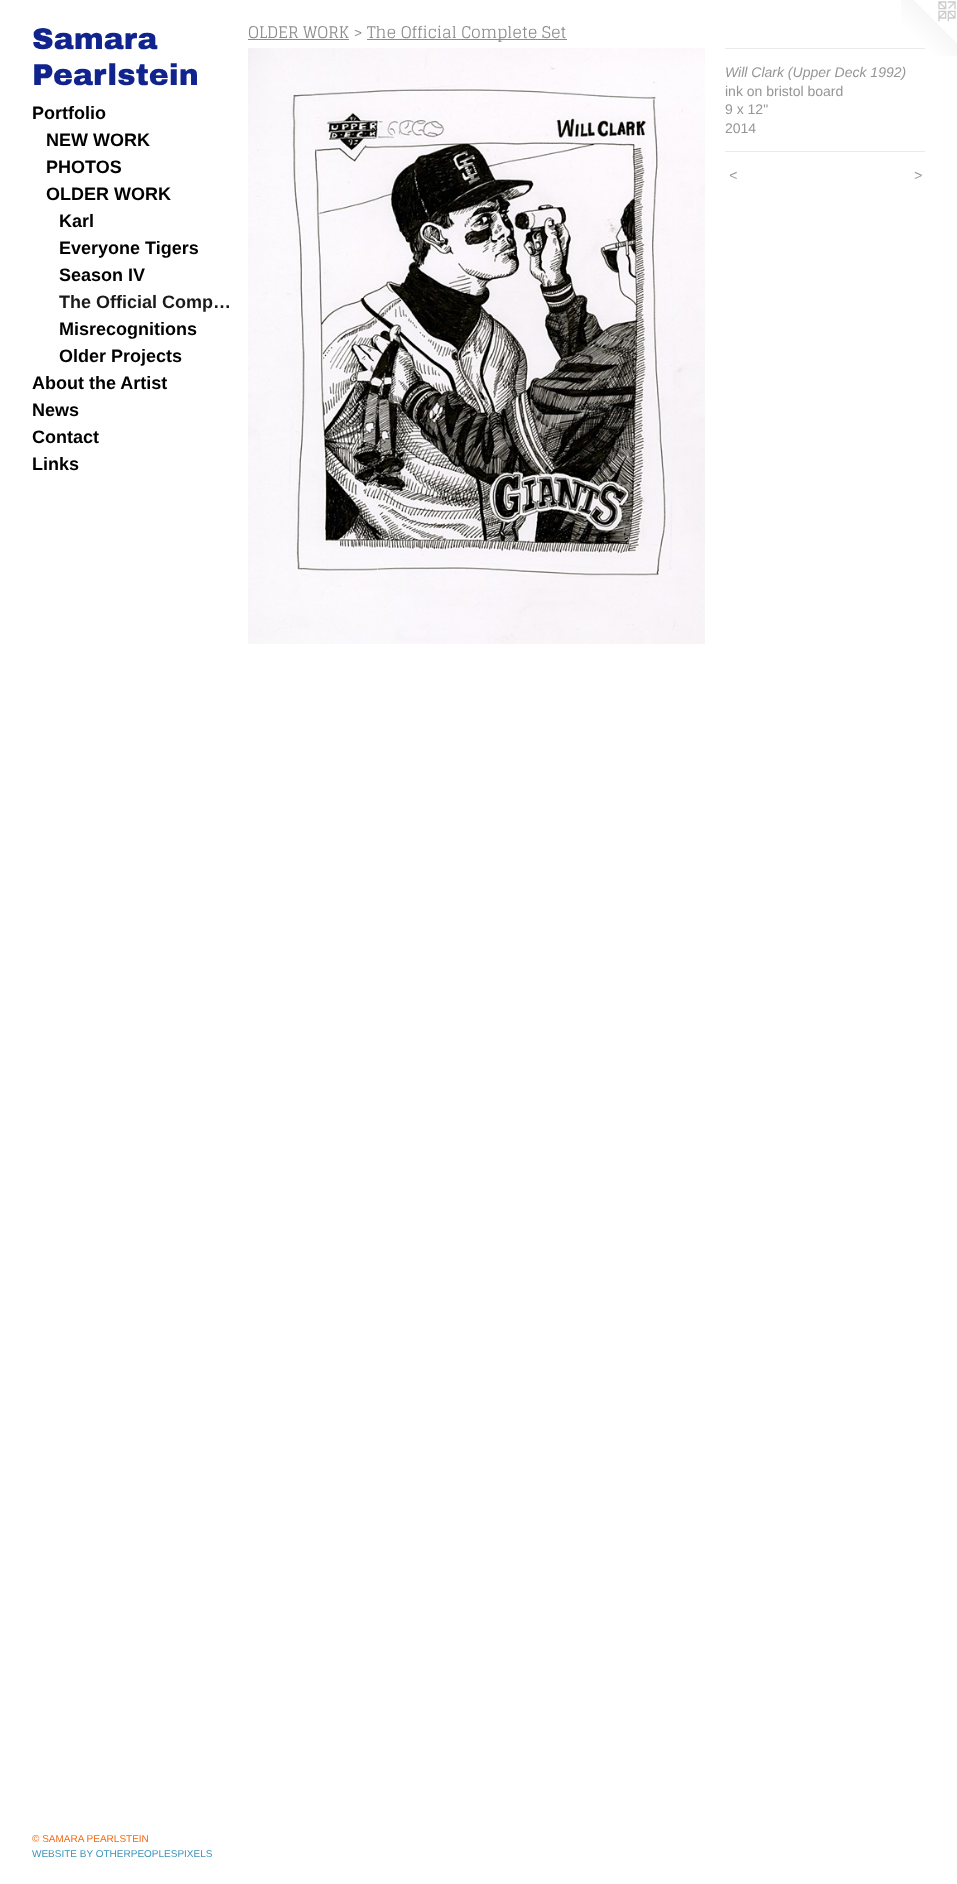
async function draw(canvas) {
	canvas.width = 957;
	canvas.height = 1884;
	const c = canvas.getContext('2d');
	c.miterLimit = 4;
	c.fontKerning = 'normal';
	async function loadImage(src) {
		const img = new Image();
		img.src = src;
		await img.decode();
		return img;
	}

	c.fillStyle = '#fff';
	c.fillRect(0, 0, 957, 1884);
	c.font = '900 30px Archivo Black';
	c.fillStyle = '#11248d';
	c.fillText('Samara', 32, 49);
	c.fillText('Pearlstein', 32, 85);
	c.font = 'bold 18px Liberation Sans';
	c.fillStyle = '#000';
	for (const [text, x, y] of [
		['Portfolio', 32, 119],
		['NEW WORK', 46, 146],
		['PHOTOS', 46, 173],
		['OLDER WORK', 46, 200],
		['Karl', 59, 227],
		['Everyone Tigers', 59, 254],
		['Season IV', 59, 281],
	]) {
		c.fillText(text, x, y);
	}
	c.fillStyle = '#1a1a1a';
	c.fillText('The Official Comp…', 59, 308);
	c.fillStyle = '#000';
	for (const [text, x, y] of [
		['Misrecognitions', 59, 335],
		['Older Projects', 59, 362],
		['About the Artist', 32, 389],
		['News', 32, 416],
		['Contact', 32, 443],
		['Links', 32, 470],
	]) {
		c.fillText(text, x, y);
	}
	c.font = '10px Liberation Sans';
	c.fillStyle = '#f46910';
	c.fillText('© SAMARA PEARLSTEIN', 32, 1842);
	c.fillStyle = '#3b94ba';
	c.fillText('WEBSITE BY OTHERPEOPLESPIXELS', 32, 1857);
	c.font = '16px Glegoo';
	c.fillStyle = '#8c8c8c';
	c.fillText('OLDER WORK >', 248, 38);
	c.fillRect(248, 39, 101, 1);
	c.fillRect(367, 39, 200, 1);
	c.fillText('The Official Complete Set', 367, 38);
	c.drawImage(await loadImage('img1.png'), 248, 48, 457, 596);
	c.drawImage(await loadImage('img2.png'), 901, 0, 56, 56);
	c.fillStyle = '#eaeaea';
	c.fillRect(725, 48, 200, 1);
	c.font = 'italic 14px Liberation Sans';
	c.fillStyle = '#969696';
	c.fillText('Will Clark (Upper Deck 1992)', 725, 77);
	c.font = '14px Liberation Sans';
	for (const [text, x, y] of [
		['ink on bristol board', 725, 96],
		['9 x 12"', 725, 114],
		['2014', 725, 133],
	]) {
		c.fillText(text, x, y);
	}
	c.fillStyle = '#eaeaea';
	c.fillRect(725, 151, 200, 1);
	c.letterSpacing = '1px';
	c.font = 'italic 14px Liberation Sans';
	c.fillStyle = '#969696';
	c.fillText('<', 729, 180);
	c.fillText('>', 914, 180);
}

draw(document.querySelector('canvas'));
